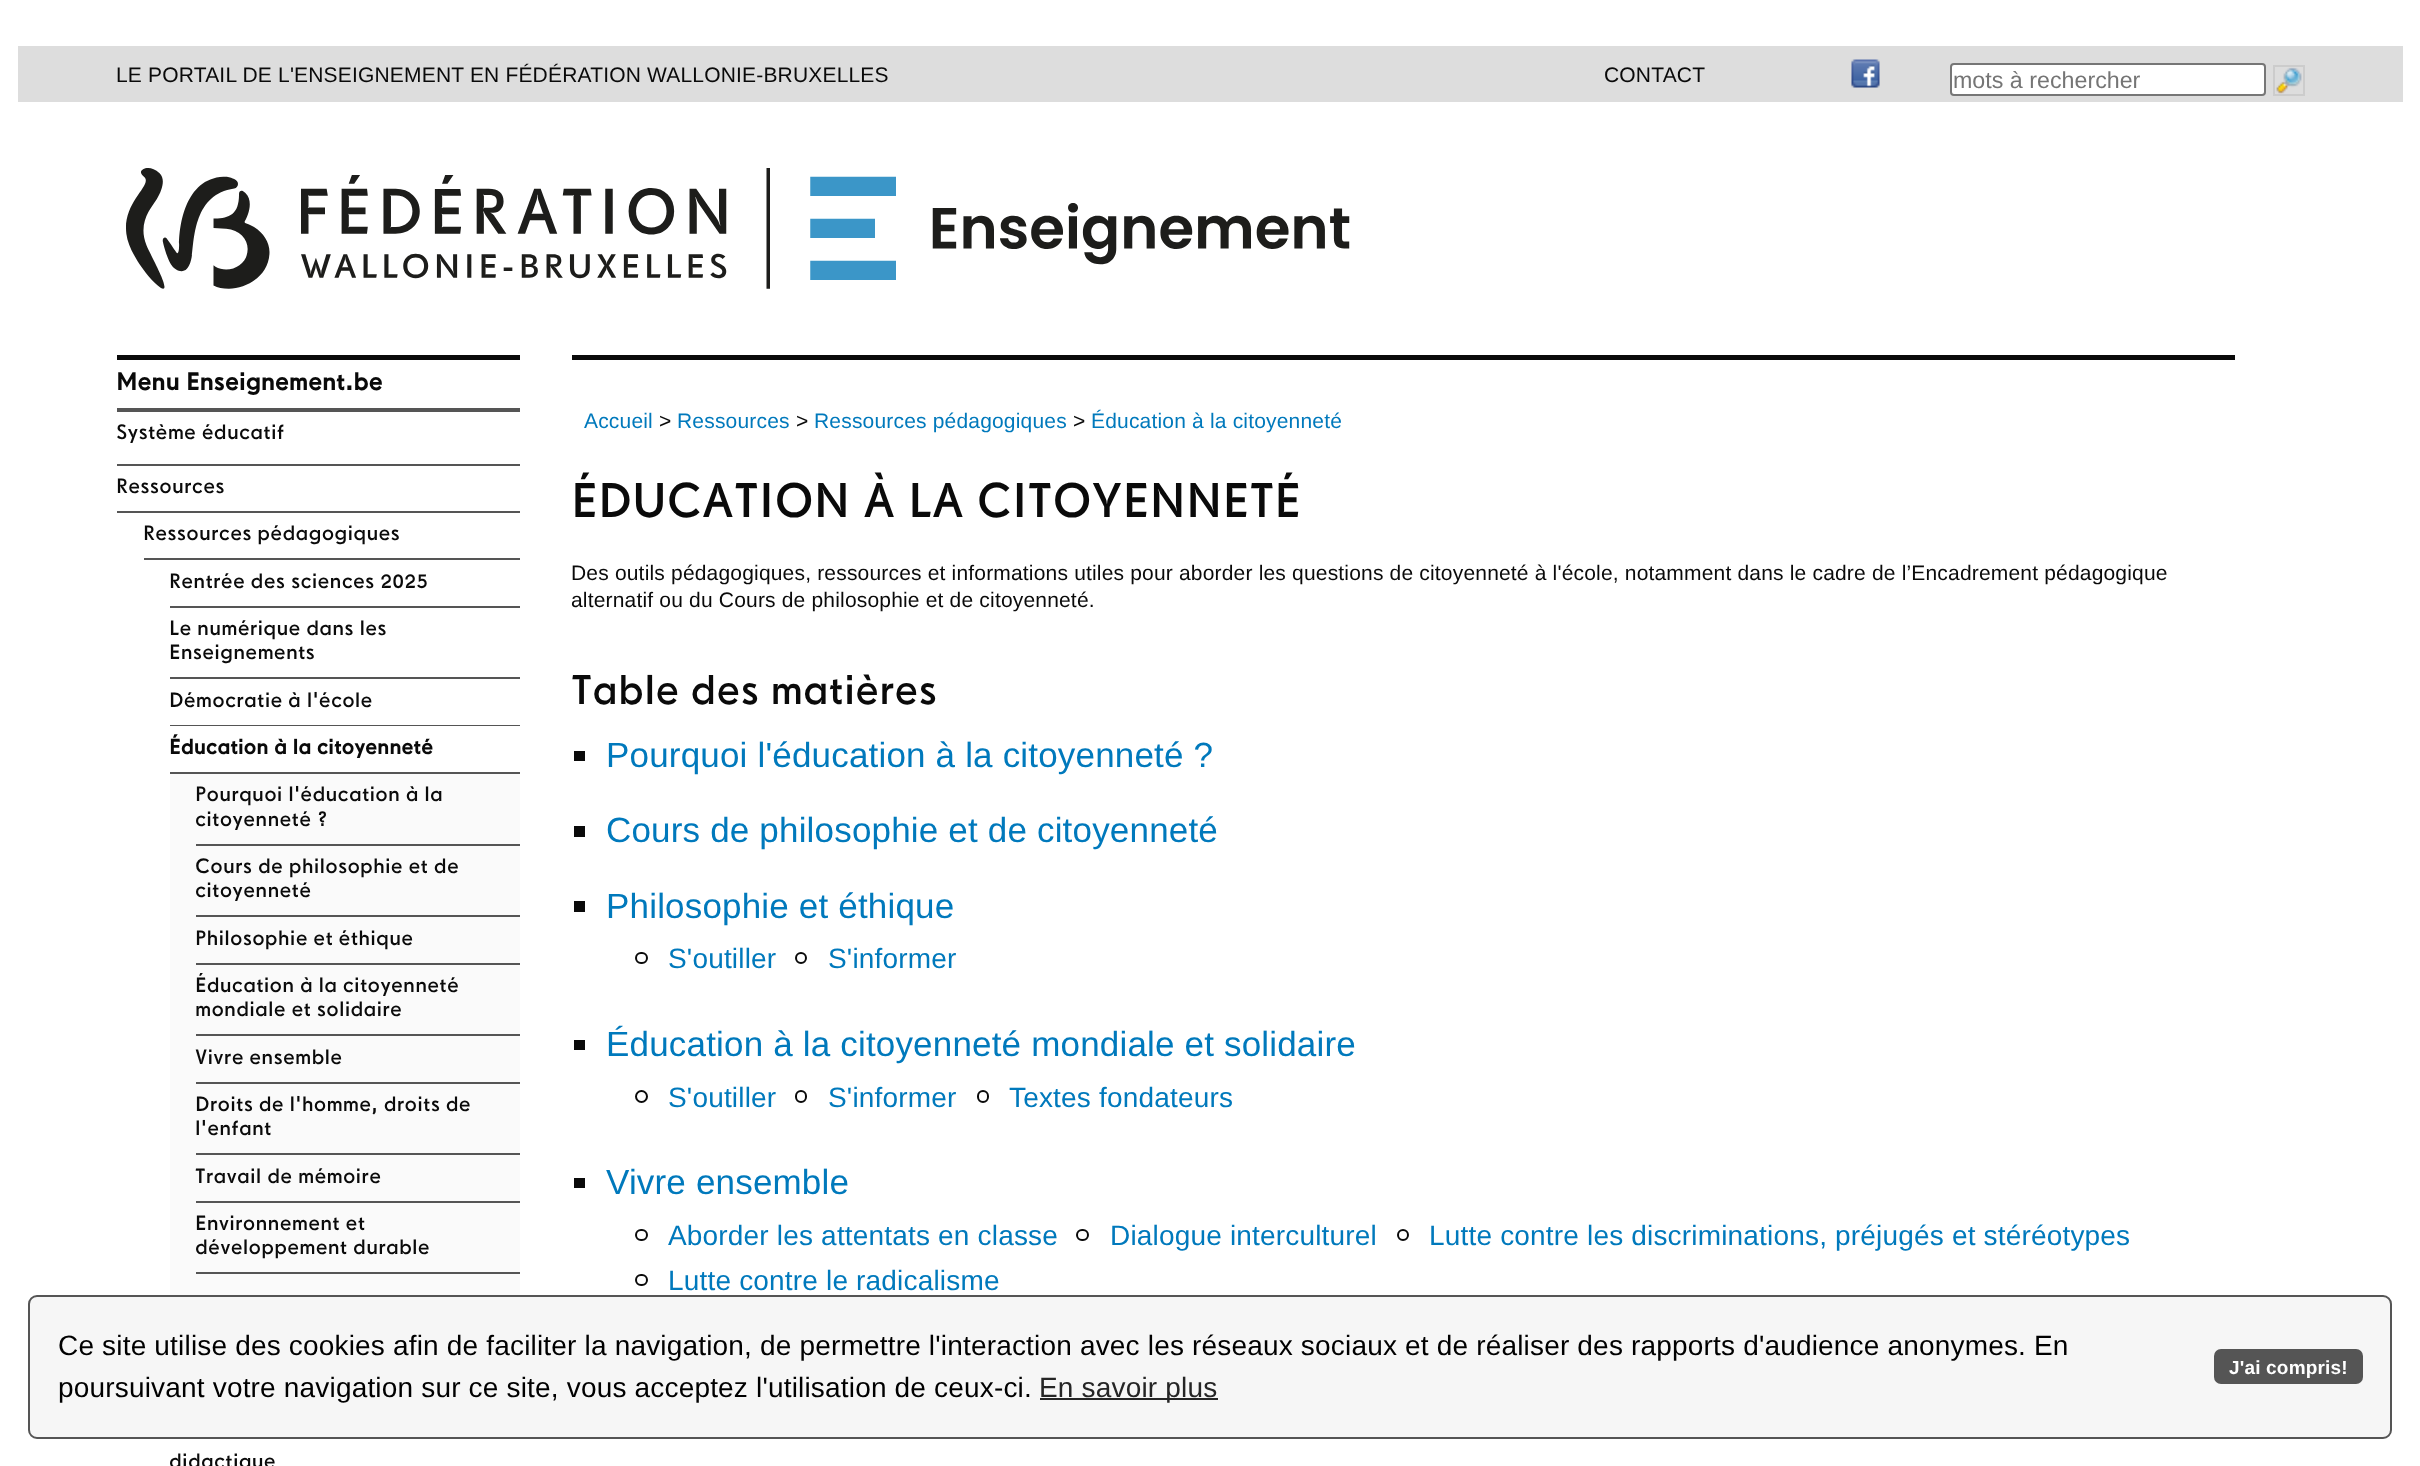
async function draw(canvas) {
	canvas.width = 2420;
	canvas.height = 1466;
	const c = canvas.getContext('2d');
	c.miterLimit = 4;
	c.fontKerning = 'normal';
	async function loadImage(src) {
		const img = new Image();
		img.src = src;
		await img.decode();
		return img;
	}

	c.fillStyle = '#fff';
	c.fillRect(0, 0, 2420, 1466);
	c.fillStyle = '#ddd';
	c.fillRect(18, 46, 2385, 56);
	c.letterSpacing = '0.18px';
	c.font = '21px Liberation Sans';
	c.fillStyle = '#0a0a0a';
	c.fillText('LE PORTAIL DE L\'ENSEIGNEMENT EN FÉDÉRATION WALLONIE-BRUXELLES', 116, 82);
	c.fillText('CONTACT', 1604, 82);
	c.drawImage(await loadImage('img1.png'), 1851, 59, 29, 29);
	c.strokeStyle = '#ccc';
	c.lineWidth = 2;
	c.strokeRect(2274, 66, 30, 29);
	c.fillStyle = '#fff';
	c.beginPath();
	c.roundRect(1951, 64, 314, 31, 3);
	c.fill();
	c.strokeStyle = '#767676';
	c.stroke();
	c.letterSpacing = '0px';
	c.font = '23.25px Liberation Sans';
	c.fillStyle = '#757575';
	c.fillText('mots à rechercher', 1953, 88);
	c.drawImage(await loadImage('img2.png'), 2276, 67, 26, 27);
	c.drawImage(await loadImage('img3.png'), 126, 168, 1224, 121);
	c.fillStyle = '#0a0a0a';
	c.fillRect(117, 355, 403, 5);
	c.fillStyle = '#555';
	c.fillRect(117, 408, 403, 4);
	c.letterSpacing = '0.18px';
	c.font = 'bold 24.5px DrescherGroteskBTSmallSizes';
	c.fillStyle = '#0a0a0a';
	c.fillText('Menu Enseignement.be', 116, 390);
	c.font = '21px DrescherGroteskBTSmallSizes';
	c.fillText('Système éducatif', 116, 439);
	c.fillStyle = '#555';
	c.fillRect(117, 464, 403, 2);
	c.fillStyle = '#0a0a0a';
	c.fillText('Ressources', 116, 493);
	c.fillStyle = '#555';
	c.fillRect(117, 511, 403, 2);
	c.fillStyle = '#0a0a0a';
	c.fillText('Ressources pédagogiques', 143, 540);
	c.fillStyle = '#555';
	c.fillRect(144, 558, 376, 2);
	c.fillStyle = '#0a0a0a';
	c.fillText('Rentrée des sciences 2025', 169, 588);
	c.fillStyle = '#555';
	c.fillRect(170, 606, 350, 2);
	c.fillStyle = '#0a0a0a';
	c.fillText('Le numérique dans les', 169, 635);
	c.fillText('Enseignements', 169, 659);
	c.fillStyle = '#555';
	c.fillRect(170, 677, 350, 2);
	c.fillStyle = '#0a0a0a';
	c.fillText('Démocratie à l\'école', 169, 707);
	c.fillStyle = '#fafafa';
	c.fillRect(170, 774, 350, 521);
	c.fillStyle = '#555';
	c.fillRect(170, 725, 350, 1);
	c.font = 'bold 21px DrescherGroteskBTSmallSizes';
	c.fillStyle = '#0a0a0a';
	c.fillText('Éducation à la citoyenneté', 169, 754);
	c.fillStyle = '#555';
	c.fillRect(170, 772, 350, 2);
	c.font = '21px DrescherGroteskBTSmallSizes';
	c.fillStyle = '#0a0a0a';
	c.fillText('Pourquoi l\'éducation à la', 195, 801);
	c.fillText('citoyenneté ?', 195, 826);
	c.fillStyle = '#555';
	c.fillRect(196, 844, 324, 2);
	c.fillStyle = '#0a0a0a';
	c.fillText('Cours de philosophie et de', 195, 873);
	c.fillText('citoyenneté', 195, 897);
	c.fillStyle = '#555';
	c.fillRect(196, 915, 324, 2);
	c.fillStyle = '#0a0a0a';
	c.fillText('Philosophie et éthique', 195, 945);
	c.fillStyle = '#555';
	c.fillRect(196, 963, 324, 2);
	c.fillStyle = '#0a0a0a';
	c.fillText('Éducation à la citoyenneté', 195, 992);
	c.fillText('mondiale et solidaire', 195, 1016);
	c.fillStyle = '#555';
	c.fillRect(196, 1034, 324, 2);
	c.fillStyle = '#0a0a0a';
	c.fillText('Vivre ensemble', 195, 1064);
	c.fillStyle = '#555';
	c.fillRect(196, 1082, 324, 2);
	c.fillStyle = '#0a0a0a';
	c.fillText('Droits de l\'homme, droits de', 195, 1111);
	c.fillText('l\'enfant', 195, 1135);
	c.fillStyle = '#555';
	c.fillRect(196, 1153, 324, 2);
	c.fillStyle = '#0a0a0a';
	c.fillText('Travail de mémoire', 195, 1183);
	c.fillStyle = '#555';
	c.fillRect(196, 1201, 324, 2);
	c.fillStyle = '#0a0a0a';
	c.fillText('Environnement et', 195, 1230);
	c.fillText('développement durable', 195, 1254);
	c.fillStyle = '#555';
	c.fillRect(196, 1272, 324, 2);
	c.fillStyle = '#0a0a0a';
	c.fillText('didactique', 169, 1468);
	c.fillRect(572, 355, 1663, 5);
	c.font = '21px Liberation Sans';
	c.fillStyle = '#0079bc';
	c.fillText('Accueil', 584, 428);
	c.fillStyle = '#0a0a0a';
	c.fillText('>', 659, 428);
	c.fillStyle = '#0079bc';
	c.fillText('Ressources', 677, 428);
	c.fillStyle = '#0a0a0a';
	c.fillText('>', 796, 428);
	c.fillStyle = '#0079bc';
	c.fillText('Ressources pédagogiques', 814, 428);
	c.fillStyle = '#0a0a0a';
	c.fillText('>', 1073, 428);
	c.fillStyle = '#0079bc';
	c.fillText('Éducation à la citoyenneté', 1091, 428);
	c.font = '49px DrescherGroteskBTSmallSizes';
	c.fillStyle = '#0a0a0a';
	c.fillText('ÉDUCATION À LA CITOYENNETÉ', 571, 517);
	c.font = '21px Liberation Sans';
	c.fillText('Des outils pédagogiques, ressources et informations utiles pour aborder les questions de citoyenneté à l\'école, notamment dans le cadre de l’Encadrement pédagogique', 571, 580);
	c.fillText('alternatif ou du Cours de philosophie et de citoyenneté.', 571, 607);
	c.font = '42px DrescherGroteskBTSmallSizes';
	c.fillText('Table des matières', 571, 704);
	c.fillRect(574, 751, 11, 10);
	c.font = '35px Liberation Sans';
	c.fillStyle = '#0079bc';
	c.fillText('Pourquoi l\'éducation à la citoyenneté ?', 606, 767);
	c.fillStyle = '#0a0a0a';
	c.fillRect(574, 826, 11, 11);
	c.fillStyle = '#0079bc';
	c.fillText('Cours de philosophie et de citoyenneté', 606, 842);
	c.fillStyle = '#0a0a0a';
	c.fillRect(574, 901, 11, 11);
	c.fillStyle = '#0079bc';
	c.fillText('Philosophie et éthique', 606, 918);
	c.beginPath();
	c.roundRect(636, 953, 11, 10, 5);
	c.strokeStyle = '#0a0a0a';
	c.stroke();
	c.font = '28px Liberation Sans';
	c.fillText('S\'outiller', 668, 968);
	c.beginPath();
	c.arc(801, 958, 5, 0, 2 * Math.PI);
	c.stroke();
	c.fillText('S\'informer', 828, 968);
	c.fillStyle = '#0a0a0a';
	c.fillRect(574, 1040, 11, 10);
	c.font = '35px Liberation Sans';
	c.fillStyle = '#0079bc';
	c.fillText('Éducation à la citoyenneté mondiale et solidaire', 606, 1056);
	c.beginPath();
	c.arc(641.5, 1096.5, 5.5, 0, 2 * Math.PI);
	c.stroke();
	c.font = '28px Liberation Sans';
	c.fillText('S\'outiller', 668, 1107);
	c.beginPath();
	c.roundRect(796, 1091, 10, 11, 5);
	c.stroke();
	c.fillText('S\'informer', 828, 1107);
	c.beginPath();
	c.roundRect(978, 1091, 10, 11, 5);
	c.stroke();
	c.fillText('Textes fondateurs', 1009, 1107);
	c.fillStyle = '#0a0a0a';
	c.fillRect(574, 1178, 11, 10);
	c.font = '35px Liberation Sans';
	c.fillStyle = '#0079bc';
	c.fillText('Vivre ensemble', 606, 1194);
	c.beginPath();
	c.roundRect(636, 1230, 11, 10, 5);
	c.stroke();
	c.font = '28px Liberation Sans';
	c.fillText('Aborder les attentats en classe', 668, 1245);
	c.beginPath();
	c.roundRect(1077, 1230, 11, 10, 5);
	c.stroke();
	c.fillText('Dialogue interculturel', 1110, 1245);
	c.beginPath();
	c.arc(1403, 1235, 5, 0, 2 * Math.PI);
	c.stroke();
	c.fillText('Lutte contre les discriminations, préjugés et stéréotypes', 1429, 1245);
	c.beginPath();
	c.roundRect(636, 1275, 11, 10, 5);
	c.stroke();
	c.fillText('Lutte contre le radicalisme', 668, 1290);
	c.fillStyle = '#f6f6f6';
	c.beginPath();
	c.roundRect(29, 1296, 2362, 142, 8);
	c.fill();
	c.strokeStyle = '#555';
	c.stroke();
	c.fillStyle = '#000';
	c.fillText('Ce site utilise des cookies afin de faciliter la navigation, de permettre l\'interaction avec les réseaux sociaux et de réaliser des rapports d\'audience anonymes. En', 58, 1355);
	c.fillText('poursuivant votre navigation sur ce site, vous acceptez l\'utilisation de ceux-ci.', 58, 1397);
	c.fillStyle = '#252525';
	c.fillRect(1040, 1398, 178, 2);
	c.fillText('En savoir plus', 1039, 1397);
	c.fillStyle = '#555';
	c.beginPath();
	c.roundRect(2214, 1349, 149, 35, 7);
	c.fill();
	c.font = 'bold 19px Liberation Sans';
	c.fillStyle = '#fff';
	c.fillText('J\'ai compris!', 2229, 1374);
}

draw(document.querySelector('canvas'));
